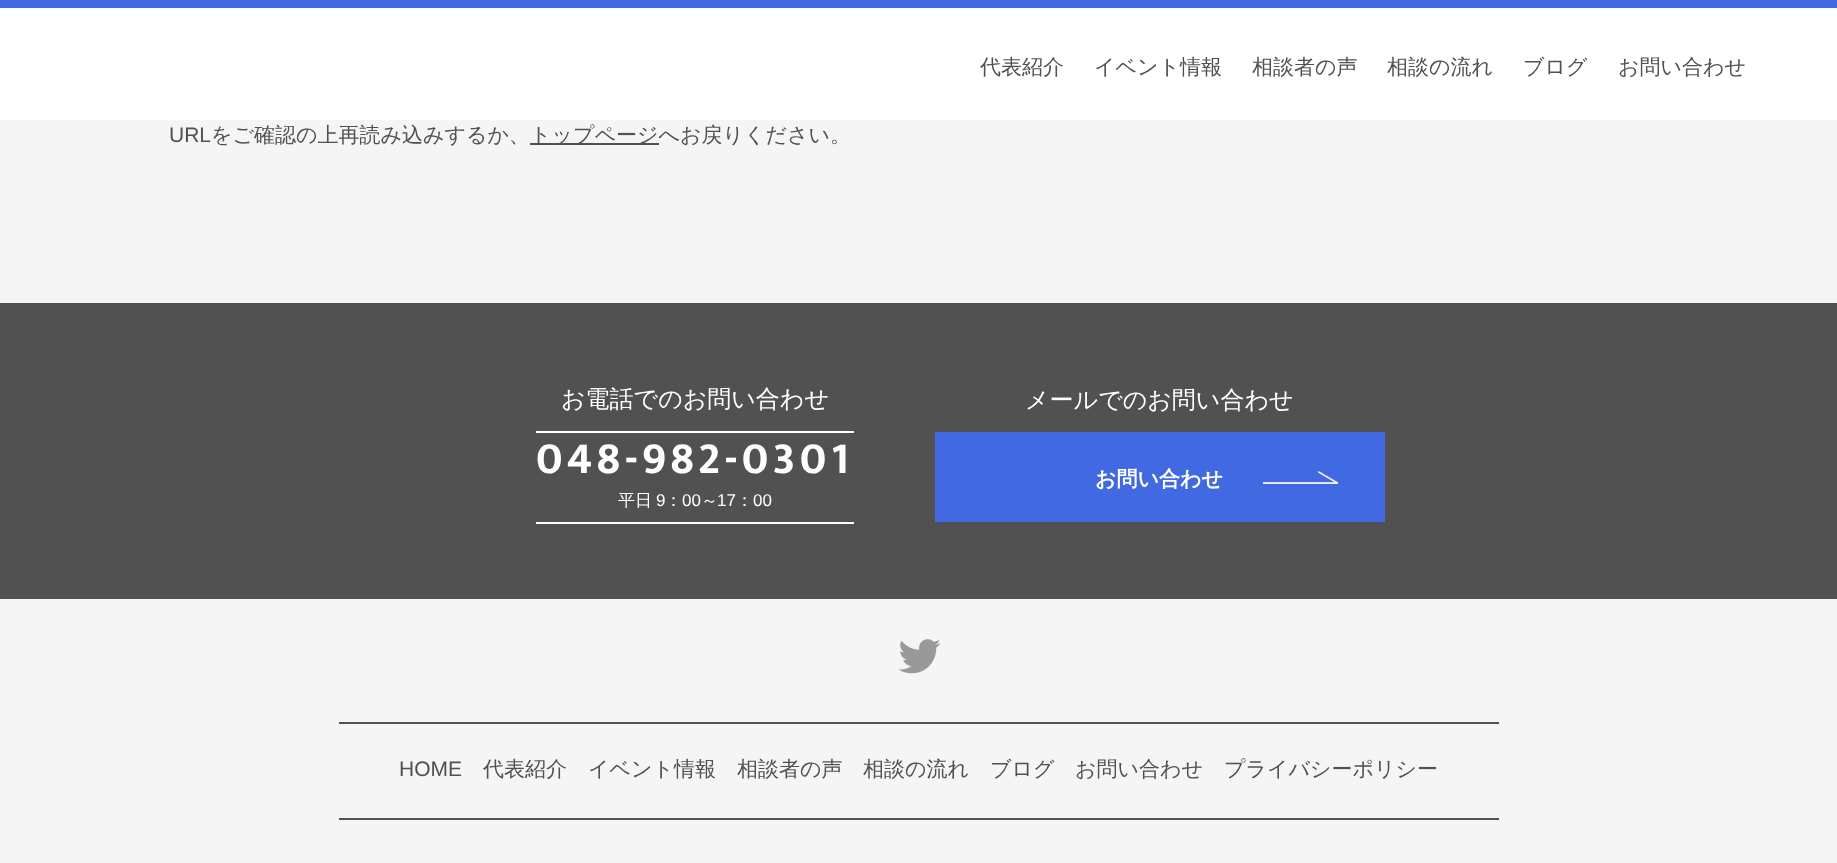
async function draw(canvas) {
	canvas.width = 1837;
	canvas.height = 863;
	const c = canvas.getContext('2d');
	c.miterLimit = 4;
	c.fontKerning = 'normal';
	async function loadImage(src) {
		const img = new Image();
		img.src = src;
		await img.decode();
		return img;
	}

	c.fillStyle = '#f5f5f5';
	c.fillRect(0, 0, 1837, 863);
	c.fillStyle = '#fff';
	c.fillRect(0, 8, 1837, 112);
	c.fillStyle = '#4169e1';
	c.fillRect(0, 0, 1837, 8);
	c.font = '500 21px WenQuanYi Zen Hei';
	c.fillStyle = '#515151';
	for (const [text, x, y] of [
		['代表紹介', 980, 74],
		['イベント情報', 1094, 74],
		['相談者の声', 1252, 74],
		['相談の流れ', 1387, 74],
		['ブログ', 1523, 74],
		['お問い合わせ', 1618, 74],
	]) {
		c.fillText(text, x, y);
	}
	c.font = '21px Liberation Sans';
	c.fillText('URL', 169, 142);
	c.font = '500 21px WenQuanYi Zen Hei';
	c.fillText('をご確認の上再読み込みするか、', 211, 142);
	c.fillRect(530, 143, 129, 2);
	c.fillText('トップページへお戻りください。', 530, 142);
	c.fillRect(0, 303, 1837, 296);
	c.font = '500 24px WenQuanYi Zen Hei';
	c.fillStyle = '#fff';
	c.fillText('お電話でのお問い合わせ', 561, 407);
	c.fillRect(536, 431, 318, 2);
	c.fillRect(536, 522, 318, 2);
	c.letterSpacing = '4.5px';
	c.font = 'bold 45px Mukta';
	c.fillText('048-982-0301', 536, 473);
	c.letterSpacing = '0px';
	c.font = '500 17px WenQuanYi Zen Hei';
	c.fillText('平日', 618, 506);
	c.font = '17px Liberation Sans';
	c.fillText('9', 656, 506);
	c.font = '500 17px WenQuanYi Zen Hei';
	c.fillText('：', 665, 506);
	c.font = '17px Liberation Sans';
	c.fillText('00', 682, 506);
	c.font = '500 17px WenQuanYi Zen Hei';
	c.fillText('～', 701, 506);
	c.font = '17px Liberation Sans';
	c.fillText('17', 717, 506);
	c.font = '500 17px WenQuanYi Zen Hei';
	c.fillText('：', 736, 506);
	c.font = '17px Liberation Sans';
	c.fillText('00', 753, 506);
	c.font = '500 24px WenQuanYi Zen Hei';
	c.fillText('メールでのお問い合わせ', 1025, 408);
	c.fillStyle = '#4169e1';
	c.fillRect(935, 432, 450, 90);
	c.font = 'bold 21px WenQuanYi Zen Hei';
	c.fillStyle = '#fff';
	c.fillText('お問い合わせ', 1095, 486);
	c.drawImage(await loadImage('img1.png'), 1263, 471, 75, 13);
	c.drawImage(await loadImage('img2.png'), 898, 639, 43, 35);
	c.fillStyle = '#515151';
	c.fillRect(339, 722, 1160, 2);
	c.fillRect(339, 818, 1160, 2);
	c.font = '21px Liberation Sans';
	c.fillText('HOME', 399, 776);
	c.font = '500 21px WenQuanYi Zen Hei';
	for (const [text, x, y] of [
		['代表紹介', 483, 776],
		['イベント情報', 588, 776],
		['相談者の声', 737, 776],
		['相談の流れ', 863, 776],
		['ブログ', 990, 776],
		['お問い合わせ', 1075, 776],
		['プライバシーポリシー', 1224, 776],
	]) {
		c.fillText(text, x, y);
	}
}

draw(document.querySelector('canvas'));
